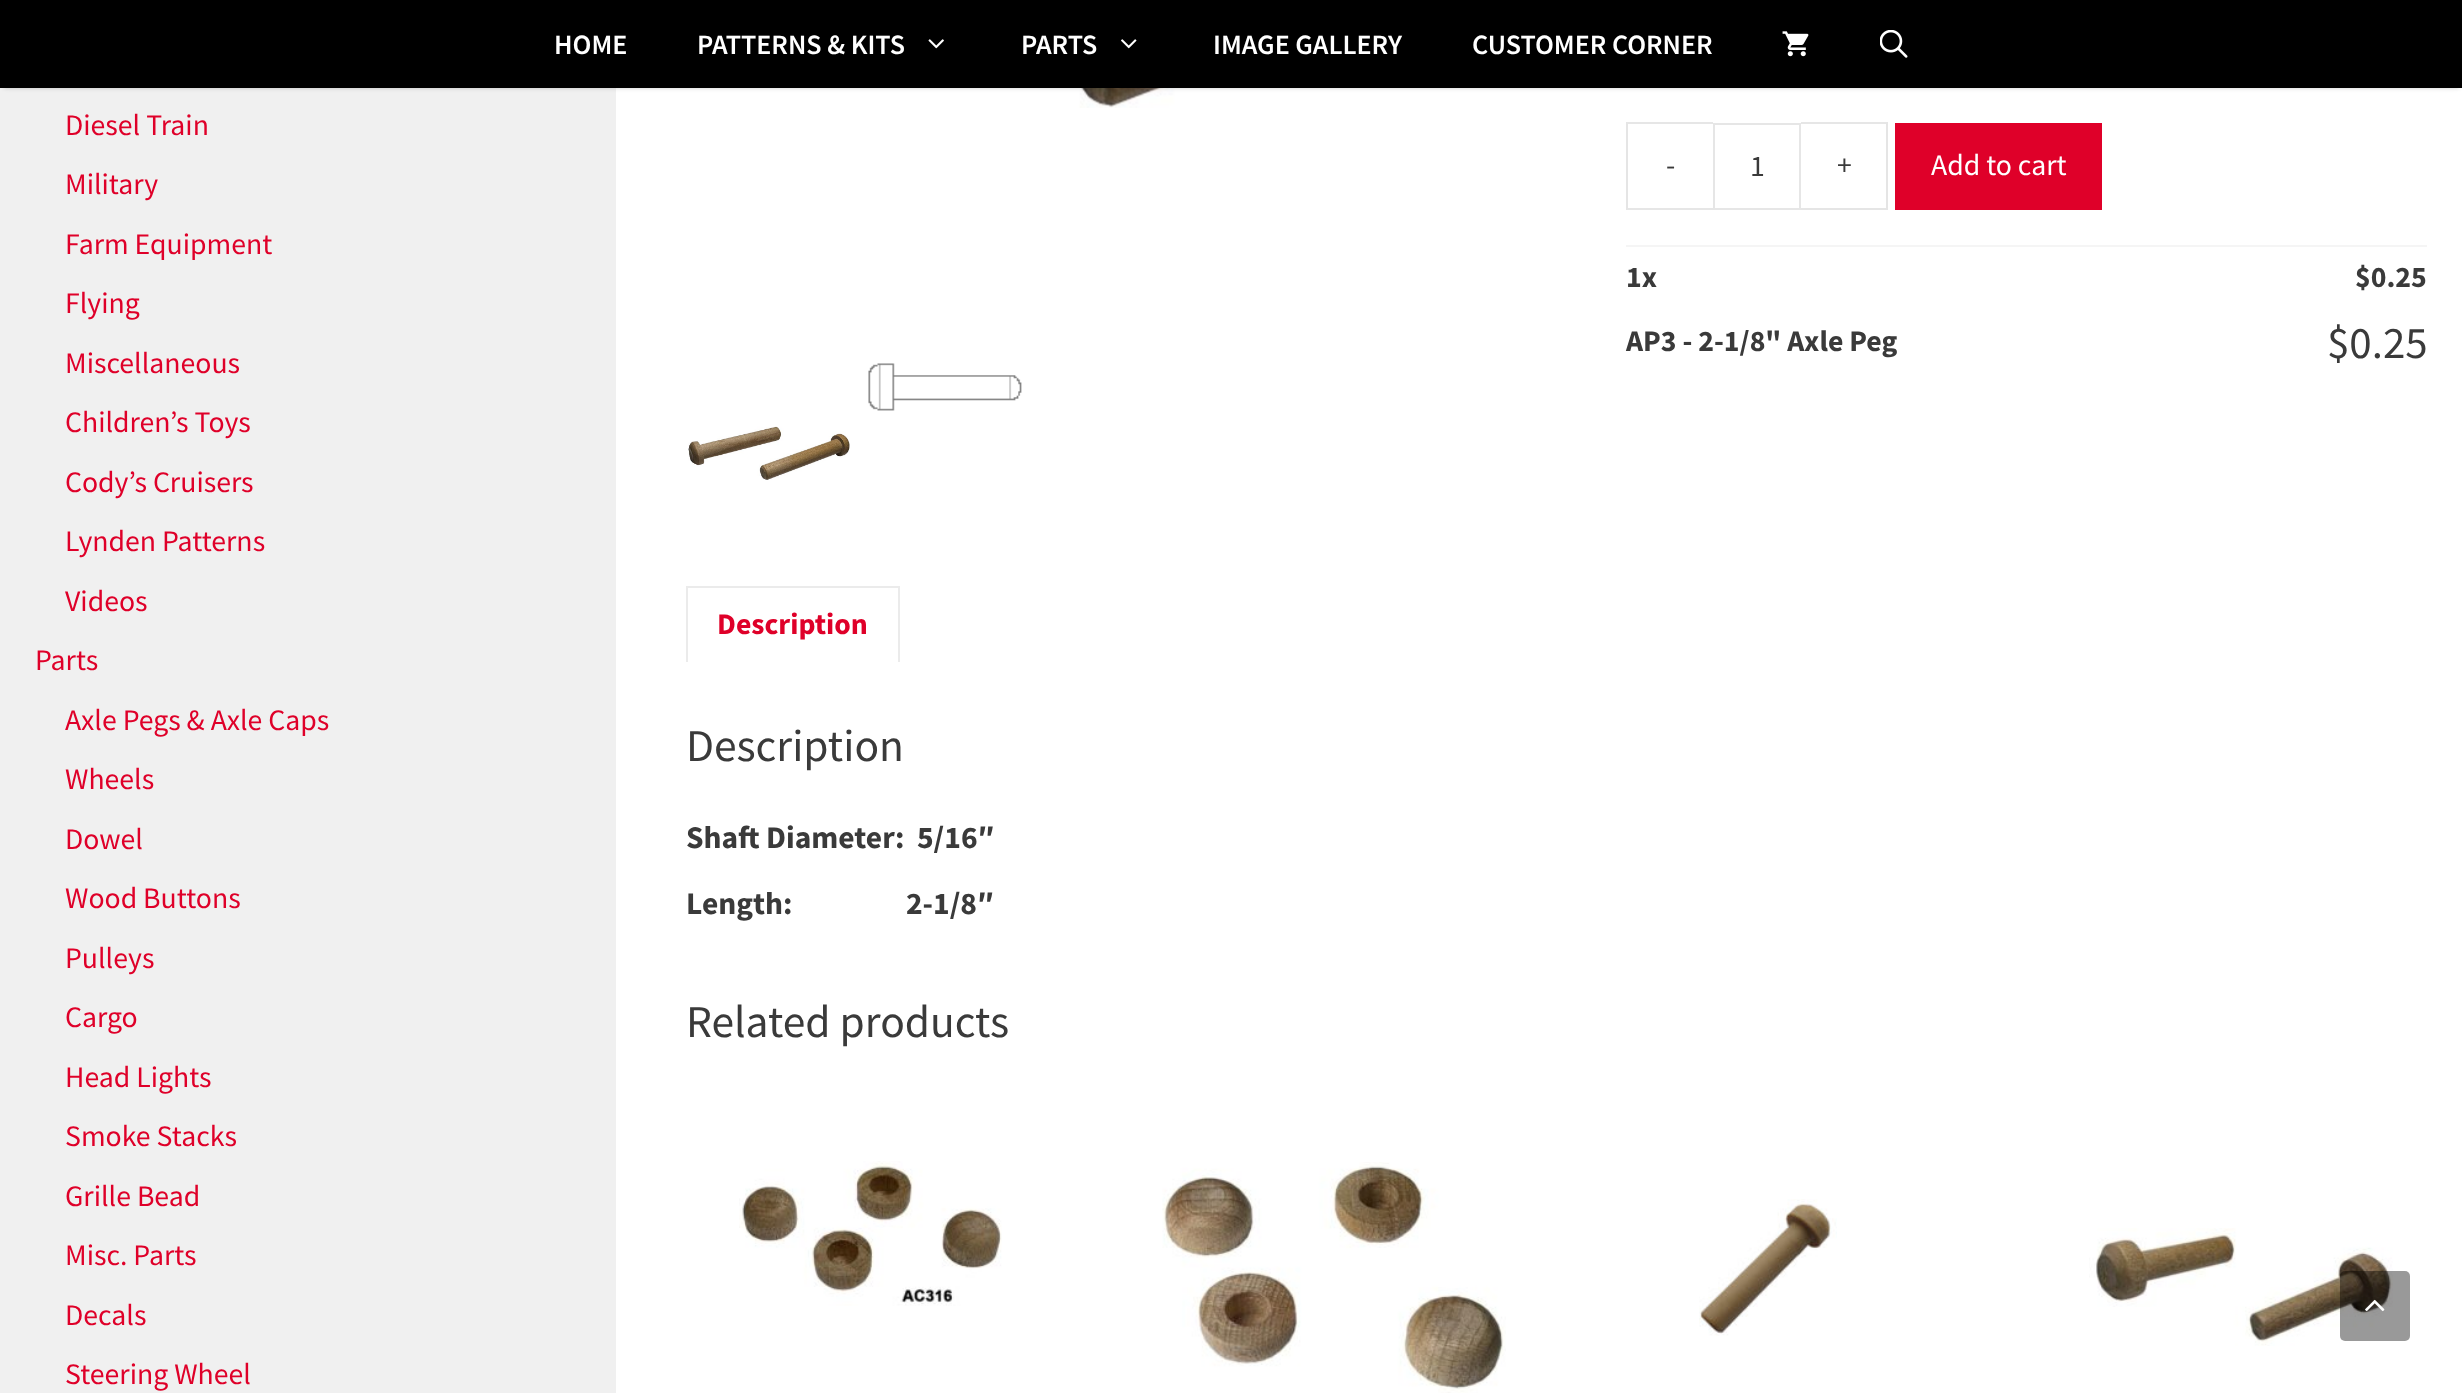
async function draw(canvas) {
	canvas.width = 2462;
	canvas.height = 1393;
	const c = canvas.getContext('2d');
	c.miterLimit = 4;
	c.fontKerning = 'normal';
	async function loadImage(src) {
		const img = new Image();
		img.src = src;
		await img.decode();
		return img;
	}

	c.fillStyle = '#fff';
	c.fillRect(0, 0, 2462, 1393);
	c.fillStyle = '#f0f0f0';
	c.fillRect(0, 88, 616, 1305);
	c.drawImage(await loadImage('img5.png'), 699, 88, 701, 20);
	c.fillStyle = '#00000033';
	c.filter = 'blur(2px)';
	c.beginPath();
	c.rect(4, 7, 2455, 81);
	c.fill();
	c.filter = 'none';
	c.fillStyle = '#000';
	c.fillRect(0, 0, 2462, 88);
	c.font = '600 28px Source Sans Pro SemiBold';
	c.fillStyle = '#fff';
	c.fillText('HOME', 554, 54);
	c.fillText('PATTERNS & KITS', 697, 54);
	c.drawImage(await loadImage('img1.png'), 928, 39, 16, 10);
	c.fillText('PARTS', 1021, 54);
	c.drawImage(await loadImage('img2.png'), 1121, 39, 16, 10);
	c.fillText('IMAGE GALLERY', 1213, 54);
	c.fillText('CUSTOMER CORNER', 1472, 54);
	c.drawImage(await loadImage('img3.png'), 1782, 31, 27, 26);
	c.drawImage(await loadImage('img4.png'), 1880, 30, 28, 28);
	c.font = '29.75px Source Sans Pro';
	c.fillStyle = '#df0029';
	for (const [text, x, y] of [
		['Diesel Train', 65, 135],
		['Military', 65, 194],
		['Farm Equipment', 65, 254],
		['Flying', 65, 313],
		['Miscellaneous', 65, 373],
		['Children’s Toys', 65, 432],
		['Cody’s Cruisers', 65, 492],
		['Lynden Patterns', 65, 551],
		['Videos', 65, 611],
		['Parts', 35, 670],
		['Axle Pegs & Axle Caps', 65, 730],
		['Wheels', 65, 789],
		['Dowel', 65, 849],
		['Wood Buttons', 65, 908],
		['Pulleys', 65, 968],
		['Cargo', 65, 1027],
		['Head Lights', 65, 1087],
		['Smoke Stacks', 65, 1146],
		['Grille Bead', 65, 1206],
		['Misc. Parts', 65, 1265],
		['Decals', 65, 1325],
		['Steering Wheel', 65, 1384],
	]) {
		c.fillText(text, x, y);
	}
	c.drawImage(await loadImage('img6.png'), 868, 363, 154, 48);
	c.drawImage(await loadImage('img7.png'), 688, 426, 162, 54);
	c.fillStyle = '#e6e6e6';
	c.beginPath();
	c.moveTo(1626, 122);
	c.lineTo(1713, 122);
	c.lineTo(1713, 124);
	c.lineTo(1628, 124);
	c.closePath();
	c.fill();
	c.beginPath();
	c.moveTo(1713, 210);
	c.lineTo(1626, 210);
	c.lineTo(1628, 208);
	c.lineTo(1713, 208);
	c.closePath();
	c.fill();
	c.fillStyle = '#0000001a';
	c.beginPath();
	c.moveTo(1626, 210);
	c.lineTo(1626, 122);
	c.lineTo(1628, 124);
	c.lineTo(1628, 208);
	c.closePath();
	c.fill();
	c.fillStyle = '#3a3a3a';
	c.fillText('-', 1666, 175);
	c.strokeStyle = '#e6e6e6';
	c.lineWidth = 2;
	c.strokeRect(1714, 124, 86, 85);
	c.fillText('1', 1750, 176);
	c.fillStyle = '#e6e6e6';
	c.beginPath();
	c.moveTo(1801, 122);
	c.lineTo(1888, 122);
	c.lineTo(1886, 124);
	c.lineTo(1801, 124);
	c.closePath();
	c.fill();
	c.fillStyle = '#0000001a';
	c.beginPath();
	c.moveTo(1888, 122);
	c.lineTo(1888, 210);
	c.lineTo(1886, 208);
	c.lineTo(1886, 124);
	c.closePath();
	c.fill();
	c.beginPath();
	c.moveTo(1888, 210);
	c.lineTo(1801, 210);
	c.lineTo(1801, 208);
	c.lineTo(1886, 208);
	c.closePath();
	c.fill();
	c.fillStyle = '#3a3a3a';
	c.fillText('+', 1837, 175);
	c.fillStyle = '#df0029';
	c.fillRect(1895, 123, 207, 87);
	c.fillStyle = '#fff';
	c.fillText('Add to cart', 1931, 175);
	c.fillStyle = '#f5f5f5';
	c.fillRect(1626, 245, 801, 2);
	c.font = 'bold 29.75px Source Sans Pro';
	c.fillStyle = '#3a3a3a';
	for (const [text, x, y] of [
		['1x', 1626, 287],
		['$0.25', 2355, 287],
		['AP3 - 2-1/8" Axle Peg', 1626, 351],
	]) {
		c.fillText(text, x, y);
	}
	c.font = '45px Source Sans Pro';
	c.fillText('$0.25', 2327, 358);
	c.fillStyle = '#ebebeb';
	c.beginPath();
	c.moveTo(686, 586);
	c.lineTo(900, 586);
	c.lineTo(898, 588);
	c.lineTo(688, 588);
	c.closePath();
	c.fill();
	c.fillStyle = '#00000014';
	c.beginPath();
	c.moveTo(900, 586);
	c.lineTo(900, 662);
	c.lineTo(898, 662);
	c.lineTo(898, 588);
	c.closePath();
	c.fill();
	c.beginPath();
	c.moveTo(686, 662);
	c.lineTo(686, 586);
	c.lineTo(688, 588);
	c.lineTo(688, 662);
	c.closePath();
	c.fill();
	c.font = 'bold 29.75px Source Sans Pro';
	c.fillStyle = '#df0029';
	c.fillText('Description', 717, 634);
	c.font = '45.5px Source Sans Pro';
	c.fillStyle = '#3a3a3a';
	c.fillText('Description', 686, 761);
	c.font = 'bold 31.5px Source Sans Pro';
	c.fillText('Shaft Diameter:  5/16″', 686, 848);
	c.fillText('Length:                  2-1/8″', 686, 914);
	c.font = '45.5px Source Sans Pro';
	c.fillText('Related products', 686, 1037);
	c.drawImage(await loadImage('img8.png'), 739, 1161, 263, 145);
	c.drawImage(await loadImage('img9.png'), 1162, 1162, 344, 231);
	c.drawImage(await loadImage('img10.png'), 1699, 1199, 138, 137);
	c.drawImage(await loadImage('img11.png'), 2089, 1228, 304, 118);
	c.fillStyle = '#00000066';
	c.beginPath();
	c.roundRect(2340, 1271, 70, 70, 5);
	c.fill();
	c.drawImage(await loadImage('img12.png'), 2365, 1299, 20, 13);
}

draw(document.querySelector('canvas'));
